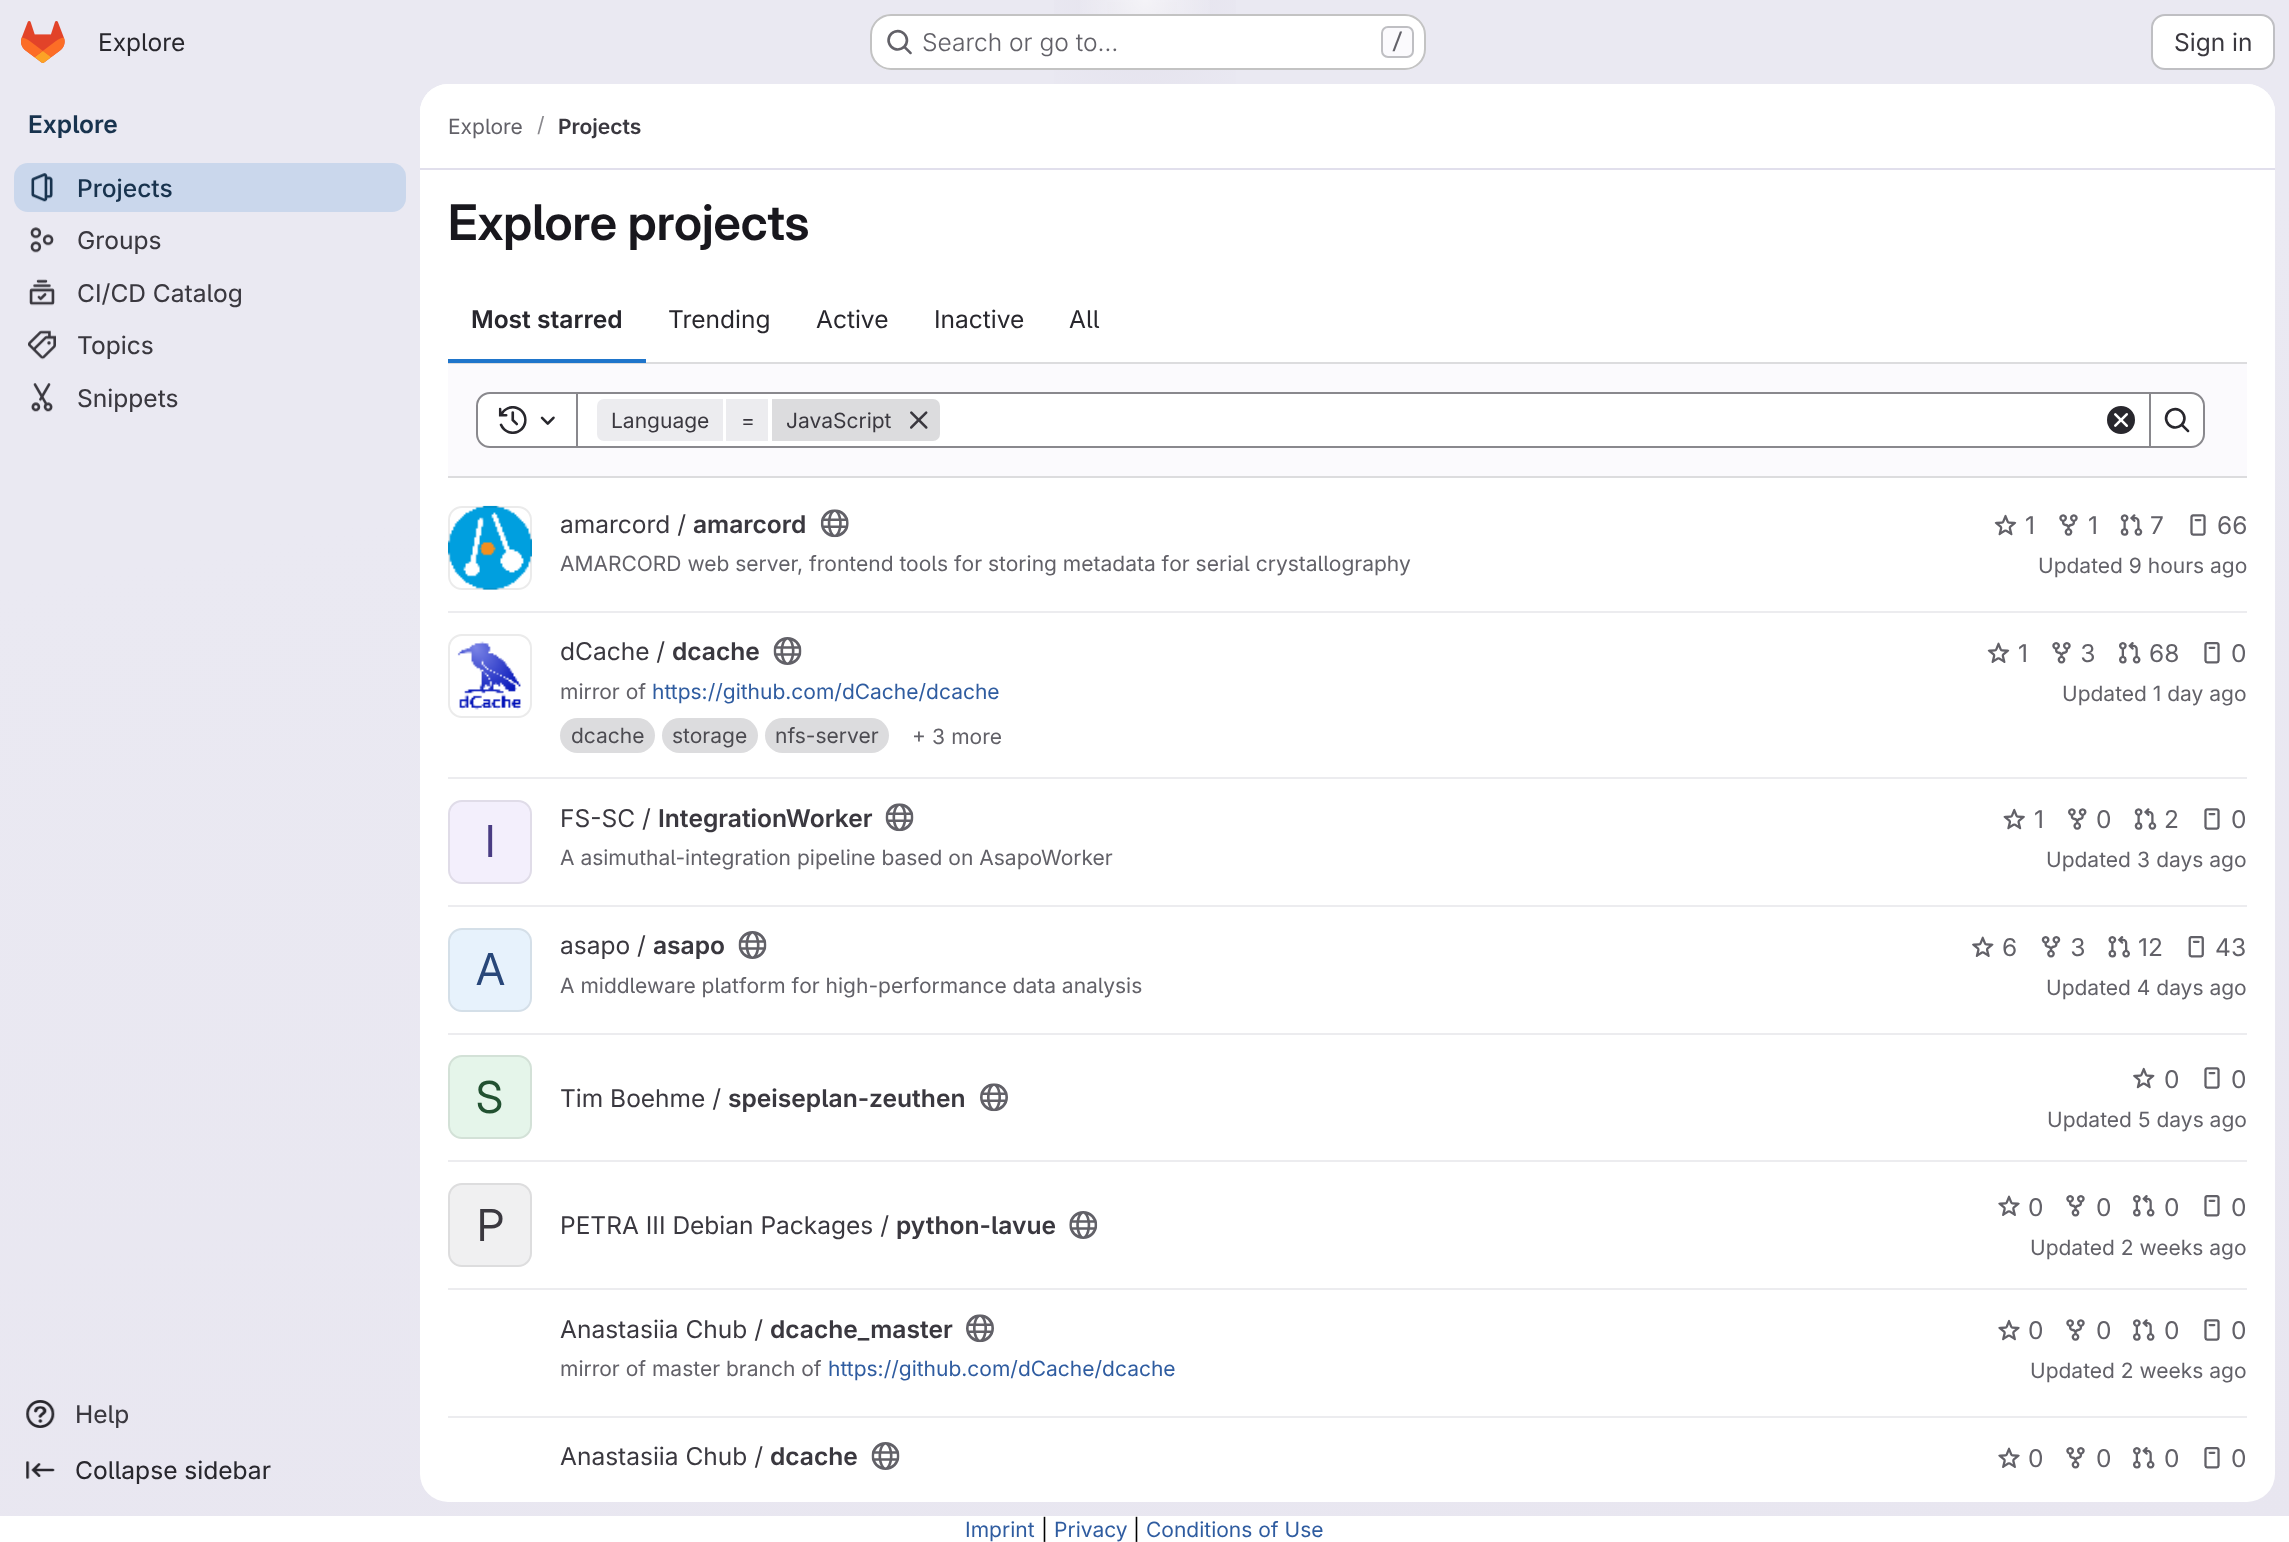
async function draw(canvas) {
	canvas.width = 2289;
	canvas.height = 1542;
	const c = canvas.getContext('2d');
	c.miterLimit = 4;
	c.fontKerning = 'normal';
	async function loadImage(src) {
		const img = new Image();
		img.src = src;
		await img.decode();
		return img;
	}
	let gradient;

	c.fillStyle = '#fff';
	c.fillRect(0, 0, 2289, 1542);
	gradient = c.createLinearGradient(1311, 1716, 978, -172);
	gradient.addColorStop(0, '#e8e6f0');
	gradient.addColorStop(0.7, '#eae9f2');
	c.fillStyle = gradient;
	c.fillRect(0, 0, 2289, 1516);
	gradient = c.createRadialGradient(1145, 0, 0, 1145, 0, 1145);
	gradient.addColorStop(0, '#e4e2ed');
	gradient.addColorStop(0.11, '#e4e2ed00');
	c.fillStyle = gradient;
	c.beginPath();
	c.rect(1054, 0, 182, 84);
	c.save();
	c.clip();
	c.scale(1, 1544 / 1145);
	c.fillRect(0, 0, 2289, 1144);
	c.restore();
	gradient = c.createRadialGradient(1145, 0, 0, 1145, 0, 1145);
	gradient.addColorStop(0, '#e4e2ec');
	gradient.addColorStop(0.08, '#e4e2ec00');
	c.fillStyle = gradient;
	c.beginPath();
	c.rect(1107, 2, 70, 28);
	c.save();
	c.clip();
	c.scale(1, 1544 / 1145);
	c.fillRect(0, 0, 2289, 1144);
	c.restore();
	gradient = c.createRadialGradient(1145, 0, 0, 1145, 0, 1922);
	gradient.addColorStop(0, '#ffffff99');
	gradient.addColorStop(0.04, '#ffffff00');
	c.fillStyle = gradient;
	c.fillRect(1080, 0, 130, 65);
	c.drawImage(await loadImage('img1.png'), 21, 21, 44, 42);
	c.font = '24.5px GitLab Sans';
	c.fillStyle = '#28272d';
	c.fillText('Explore', 98, 51);
	c.fillStyle = '#fff';
	c.beginPath();
	c.roundRect(870, 14, 556, 56, 21);
	c.fill();
	c.beginPath();
	c.roundRect(871, 15, 554, 54, 20);
	c.strokeStyle = '#0505063d';
	c.lineWidth = 2;
	c.stroke();
	c.drawImage(await loadImage('img2.png'), 887, 29, 25, 26);
	c.font = '300 24.5px GitLab Sans';
	c.fillStyle = '#626168';
	c.fillText('Search or go to…', 922, 51);
	c.fillStyle = '#fbfafd';
	c.beginPath();
	c.roundRect(1382, 27, 31, 30, 6);
	c.fill();
	c.strokeStyle = '#bfbfc3';
	c.stroke();
	c.font = '500 21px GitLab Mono';
	c.fillStyle = '#626168';
	c.fillText('/', 1391, 49);
	c.fillStyle = '#fff';
	c.beginPath();
	c.roundRect(2152, 15, 122, 54, 13);
	c.fill();
	c.stroke();
	c.font = '24.5px GitLab Sans';
	c.fillStyle = '#3a383f';
	c.fillText('Sign in', 2174, 51);
	c.font = '600 24.5px "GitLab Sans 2"';
	c.fillStyle = '#18334e';
	c.fillText('Explore', 28, 133);
	c.fillStyle = '#cad7ec';
	c.beginPath();
	c.roundRect(14, 163, 392, 49, 14);
	c.fill();
	c.drawImage(await loadImage('img3.png'), 31, 173, 22, 29);
	c.font = '500 24.5px GitLab Sans';
	c.fillStyle = '#18334e';
	c.fillText('Projects', 77, 197);
	c.drawImage(await loadImage('img4.png'), 30, 227, 24, 26);
	c.font = '24.5px "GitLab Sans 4"';
	c.fillStyle = '#3a383f';
	c.fillText('Groups', 77, 249);
	c.drawImage(await loadImage('img5.png'), 29, 279, 26, 27);
	c.fillText('CI/CD Catalog', 77, 302);
	c.drawImage(await loadImage('img6.png'), 28, 330, 28, 30);
	c.fillText('Topics', 77, 354);
	c.drawImage(await loadImage('img7.png'), 31, 383, 22, 29);
	c.fillText('Snippets', 77, 407);
	c.drawImage(await loadImage('img8.png'), 26, 1400, 29, 28);
	c.fillText('Help', 75, 1423);
	c.drawImage(await loadImage('img9.png'), 26, 1461, 29, 18);
	c.fillStyle = '#28272d';
	c.fillText('Collapse sidebar', 75, 1479);
	c.fillStyle = '#fff';
	c.beginPath();
	c.roundRect(420, 84, 1855, 1418, 28);
	c.fill();
	c.beginPath();
	c.roundRect(420, 84, 1855, 86, [28, 28, 0, 0]);
	c.fill();
	c.fillStyle = '#e1dfec';
	c.fillRect(420, 168, 1855, 2);
	c.font = '21px GitLab Sans';
	c.fillStyle = '#626168';
	c.fillText('Explore', 448, 134);
	c.fillStyle = '#89888d';
	c.fillText('/', 537, 132);
	c.font = '600 21px "GitLab Sans 2"';
	c.fillStyle = '#3a383f';
	c.fillText('Projects', 558, 134);
	c.font = '600 49px GitLab Sans';
	c.fillStyle = '#18171d';
	c.fillText('Explore projects', 448, 240);
	c.font = '600 24.5px "GitLab Sans 2"';
	c.fillStyle = '#28272d';
	c.fillText('Most starred', 471, 328);
	c.fillStyle = '#dcdcde';
	c.fillRect(448, 362, 1799, 2);
	c.fillStyle = '#1f75cb';
	c.fillRect(448, 359, 198, 4);
	c.font = '24.5px GitLab Sans';
	c.fillStyle = '#28272d';
	for (const [text, x, y] of [
		['Trending', 668, 328],
		['Active', 816, 328],
		['Inactive', 934, 328],
		['All', 1069, 328],
	]) {
		c.fillText(text, x, y);
	}
	c.fillStyle = '#fbfafd';
	c.fillRect(448, 364, 1799, 112);
	c.fillStyle = '#dcdcde';
	c.fillRect(448, 476, 1799, 2);
	c.fillStyle = '#fff';
	c.beginPath();
	c.rect(577, 393, 1573, 54);
	c.fill();
	c.strokeStyle = '#89888d';
	c.stroke();
	c.beginPath();
	c.roundRect(477, 393, 100, 54, [13, 0, 0, 13]);
	c.fill();
	c.stroke();
	c.drawImage(await loadImage('img10.png'), 498, 406, 29, 28);
	c.drawImage(await loadImage('img11.png'), 540, 416, 15, 9);
	c.fillStyle = '#ececef';
	c.beginPath();
	c.roundRect(597, 399, 126, 42, [7, 0, 0, 7]);
	c.fill();
	c.font = '21px GitLab Sans';
	c.fillStyle = '#3a383f';
	c.fillText('Language', 611, 428);
	c.fillStyle = '#ececef';
	c.fillRect(726, 399, 42, 42);
	c.fillStyle = '#3a383f';
	c.fillText('=', 741, 428);
	c.fillStyle = '#dcdcde';
	c.beginPath();
	c.roundRect(772, 399, 168, 42, [0, 7, 7, 0]);
	c.fill();
	c.fillStyle = '#3a383f';
	c.fillText('JavaScript', 786, 428);
	c.drawImage(await loadImage('img12.png'), 910, 411, 18, 18);
	c.drawImage(await loadImage('img13.png'), 2107, 406, 28, 28);
	c.fillStyle = '#fff';
	c.beginPath();
	c.roundRect(2150, 393, 54, 54, [0, 13, 13, 0]);
	c.fill();
	c.stroke();
	c.drawImage(await loadImage('img14.png'), 2164, 407, 26, 26);
	c.fillStyle = '#ececef';
	c.fillRect(448, 611, 1799, 2);
	c.drawImage(await loadImage('img15.png'), 448, 505, 84, 85);
	c.beginPath();
	c.roundRect(449, 507, 82, 82, 13);
	c.strokeStyle = '#05050614';
	c.stroke();
	c.font = '24.5px GitLab Sans';
	c.fillStyle = '#3a383f';
	c.fillText('amarcord /', 560, 533);
	c.font = '600 24.5px "GitLab Sans 2"';
	c.fillText('amarcord', 693, 533);
	c.drawImage(await loadImage('img16.png'), 820, 509, 29, 29);
	c.font = '21px GitLab Sans';
	c.fillStyle = '#626168';
	c.fillText('AMARCORD web server, frontend tools for storing metadata for serial crystallography', 560, 571);
	c.drawImage(await loadImage('img17.png'), 1994, 514, 23, 22);
	c.font = '24.5px GitLab Sans';
	c.fillText('1', 2025, 534);
	c.drawImage(await loadImage('img18.png'), 2059, 514, 19, 22);
	c.fillText('1', 2088, 534);
	c.drawImage(await loadImage('img19.png'), 2120, 514, 23, 22);
	c.fillText('7', 2150, 534);
	c.drawImage(await loadImage('img20.png'), 2190, 514, 16, 22);
	c.fillText('66', 2217, 534);
	c.font = '21px GitLab Sans';
	c.fillText('Updated 9 hours ago', 2038, 573);
	c.fillStyle = '#ececef';
	c.fillRect(448, 777, 1799, 2);
	c.drawImage(await loadImage('img21.png'), 457, 641, 64, 69);
	c.beginPath();
	c.roundRect(449, 635, 82, 82, 13);
	c.strokeStyle = '#ebebeb';
	c.stroke();
	c.font = '24.5px GitLab Sans';
	c.fillStyle = '#3a383f';
	c.fillText('dCache /', 560, 660);
	c.font = '600 24.5px "GitLab Sans 2"';
	c.fillText('dcache', 672, 660);
	c.drawImage(await loadImage('img22.png'), 773, 637, 29, 28);
	c.font = '21px GitLab Sans';
	c.fillStyle = '#626168';
	c.fillText('mirror of', 560, 699);
	c.fillStyle = '#2f5ca0';
	c.fillText('https://github.com/dCache/dcache', 652, 699);
	c.fillStyle = '#dcdcde';
	c.beginPath();
	c.roundRect(560, 718, 95, 35, 17.5);
	c.fill();
	c.fillStyle = '#4c4b51';
	c.fillText('dcache', 571, 743);
	c.fillStyle = '#dcdcde';
	c.beginPath();
	c.roundRect(662, 718, 96, 35, 17.5);
	c.fill();
	c.fillStyle = '#4c4b51';
	c.fillText('storage', 672, 743);
	c.fillStyle = '#dcdcde';
	c.beginPath();
	c.roundRect(765, 718, 124, 35, 17.5);
	c.fill();
	c.fillStyle = '#4c4b51';
	c.fillText('nfs-server', 775, 743);
	c.fillStyle = '#626168';
	c.fillText('+ 3 more', 912, 744);
	c.drawImage(await loadImage('img23.png'), 1987, 642, 23, 21);
	c.font = '24.5px GitLab Sans';
	c.fillText('1', 2018, 662);
	c.drawImage(await loadImage('img24.png'), 2052, 642, 19, 22);
	c.fillText('3', 2080, 662);
	c.drawImage(await loadImage('img25.png'), 2119, 642, 22, 22);
	c.fillText('68', 2149, 662);
	c.drawImage(await loadImage('img26.png'), 2204, 642, 16, 22);
	c.fillText('0', 2231, 662);
	c.font = '21px GitLab Sans';
	c.fillText('Updated 1 day ago', 2062, 701);
	c.fillStyle = '#ececef';
	c.fillRect(448, 905, 1799, 2);
	c.fillStyle = '#f3effc';
	c.beginPath();
	c.roundRect(448, 800, 84, 84, 14);
	c.fill();
	c.beginPath();
	c.roundRect(449, 801, 82, 82, 13);
	c.strokeStyle = '#05050614';
	c.stroke();
	c.font = '44px "GitLab Sans 2"';
	c.fillStyle = '#493c83';
	c.fillText('I', 485, 857);
	c.font = '24.5px GitLab Sans';
	c.fillStyle = '#3a383f';
	c.fillText('FS-SC /', 560, 827);
	c.font = '600 24.5px "GitLab Sans 2"';
	c.fillText('IntegrationWorker', 658, 827);
	c.drawImage(await loadImage('img27.png'), 885, 803, 29, 29);
	c.font = '21px GitLab Sans';
	c.fillStyle = '#626168';
	c.fillText('A asimuthal-integration pipeline based on AsapoWorker', 560, 865);
	c.drawImage(await loadImage('img28.png'), 2003, 808, 22, 22);
	c.font = '24.5px GitLab Sans';
	c.fillText('1', 2034, 828);
	c.drawImage(await loadImage('img29.png'), 2068, 808, 19, 22);
	c.fillText('0', 2096, 828);
	c.drawImage(await loadImage('img19.png'), 2134, 808, 23, 22);
	c.fillText('2', 2164, 828);
	c.drawImage(await loadImage('img20.png'), 2204, 808, 16, 22);
	c.fillText('0', 2231, 828);
	c.font = '21px GitLab Sans';
	c.fillText('Updated 3 days ago', 2046, 867);
	c.fillStyle = '#ececef';
	c.fillRect(448, 1033, 1799, 2);
	c.fillStyle = '#e7f2fc';
	c.beginPath();
	c.roundRect(448, 928, 84, 84, 14);
	c.fill();
	c.beginPath();
	c.roundRect(449, 929, 82, 82, 13);
	c.stroke();
	c.font = '44px "GitLab Sans 2"';
	c.fillStyle = '#284779';
	c.fillText('A', 476, 985);
	c.font = '24.5px GitLab Sans';
	c.fillStyle = '#3a383f';
	c.fillText('asapo /', 560, 954);
	c.font = '600 24.5px "GitLab Sans 2"';
	c.fillText('asapo', 653, 954);
	c.drawImage(await loadImage('img30.png'), 738, 931, 29, 28);
	c.font = '21px GitLab Sans';
	c.fillStyle = '#626168';
	c.fillText('A middleware platform for high-performance data analysis', 560, 993);
	c.drawImage(await loadImage('img31.png'), 1972, 936, 22, 21);
	c.font = '24.5px GitLab Sans';
	c.fillText('6', 2002, 956);
	c.drawImage(await loadImage('img32.png'), 2041, 936, 20, 22);
	c.fillText('3', 2070, 956);
	c.drawImage(await loadImage('img33.png'), 2108, 936, 22, 22);
	c.fillText('12', 2138, 956);
	c.drawImage(await loadImage('img34.png'), 2188, 936, 16, 22);
	c.fillText('43', 2215, 956);
	c.font = '21px GitLab Sans';
	c.fillText('Updated 4 days ago', 2046, 995);
	c.fillStyle = '#ececef';
	c.fillRect(448, 1160, 1799, 2);
	c.fillStyle = '#e5f5ea';
	c.beginPath();
	c.roundRect(448, 1055, 84, 84, 14);
	c.fill();
	c.beginPath();
	c.roundRect(449, 1056, 82, 82, 13);
	c.stroke();
	c.font = '44px "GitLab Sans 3"';
	c.fillStyle = '#225131';
	c.fillText('S', 476, 1113);
	c.font = '24.5px GitLab Sans';
	c.fillStyle = '#3a383f';
	c.fillText('Tim Boehme /', 560, 1107);
	c.font = '600 24.5px "GitLab Sans 2"';
	c.fillText('speiseplan-zeuthen', 728, 1107);
	c.drawImage(await loadImage('img35.png'), 980, 1083, 28, 29);
	c.drawImage(await loadImage('img36.png'), 2133, 1067, 22, 22);
	c.font = '24.5px GitLab Sans';
	c.fillStyle = '#626168';
	c.fillText('0', 2164, 1088);
	c.drawImage(await loadImage('img20.png'), 2204, 1067, 16, 22);
	c.fillText('0', 2231, 1088);
	c.font = '21px GitLab Sans';
	c.fillText('Updated 5 days ago', 2047, 1127);
	c.fillStyle = '#ececef';
	c.fillRect(448, 1288, 1799, 2);
	c.fillStyle = '#f0f0f1';
	c.beginPath();
	c.roundRect(448, 1183, 84, 84, 14);
	c.fill();
	c.beginPath();
	c.roundRect(449, 1184, 82, 82, 13);
	c.stroke();
	c.font = '44px "GitLab Sans 3"';
	c.fillStyle = '#3a383f';
	c.fillText('P', 477, 1241);
	c.font = '24.5px GitLab Sans';
	c.fillText('PETRA III Debian Packages /', 560, 1234);
	c.font = '600 24.5px "GitLab Sans 2"';
	c.fillText('python-lavue', 896, 1234);
	c.drawImage(await loadImage('img37.png'), 1069, 1211, 29, 28);
	c.drawImage(await loadImage('img38.png'), 1998, 1195, 22, 21);
	c.font = '24.5px GitLab Sans';
	c.fillStyle = '#626168';
	c.fillText('0', 2028, 1216);
	c.drawImage(await loadImage('img39.png'), 2066, 1195, 19, 22);
	c.fillText('0', 2096, 1216);
	c.drawImage(await loadImage('img25.png'), 2133, 1195, 22, 22);
	c.fillText('0', 2164, 1216);
	c.drawImage(await loadImage('img26.png'), 2204, 1195, 16, 22);
	c.fillText('0', 2231, 1216);
	c.font = '21px GitLab Sans';
	c.fillText('Updated 2 weeks ago', 2030, 1255);
	c.fillStyle = '#ececef';
	c.fillRect(448, 1416, 1799, 2);
	c.font = '24.5px GitLab Sans';
	c.fillStyle = '#3a383f';
	c.fillText('Anastasiia Chub /', 560, 1338);
	c.font = '600 24.5px "GitLab Sans 2"';
	c.fillText('dcache_master', 770, 1338);
	c.drawImage(await loadImage('img35.png'), 966, 1314, 28, 29);
	c.font = '21px GitLab Sans';
	c.fillStyle = '#626168';
	c.fillText('mirror of master branch of', 560, 1376);
	c.fillStyle = '#2f5ca0';
	c.fillText('https://github.com/dCache/dcache', 828, 1376);
	c.drawImage(await loadImage('img40.png'), 1998, 1319, 22, 22);
	c.font = '24.5px GitLab Sans';
	c.fillStyle = '#626168';
	c.fillText('0', 2028, 1339);
	c.drawImage(await loadImage('img41.png'), 2066, 1319, 19, 22);
	c.fillText('0', 2096, 1339);
	c.drawImage(await loadImage('img42.png'), 2133, 1319, 22, 22);
	c.fillText('0', 2164, 1339);
	c.drawImage(await loadImage('img20.png'), 2204, 1319, 16, 22);
	c.fillText('0', 2231, 1339);
	c.font = '21px GitLab Sans';
	c.fillText('Updated 2 weeks ago', 2030, 1378);
	c.font = '24.5px GitLab Sans';
	c.fillStyle = '#3a383f';
	c.fillText('Anastasiia Chub /', 560, 1465);
	c.font = '600 24.5px "GitLab Sans 2"';
	c.fillText('dcache', 770, 1465);
	c.drawImage(await loadImage('img22.png'), 871, 1442, 29, 28);
	c.drawImage(await loadImage('img38.png'), 1998, 1447, 22, 21);
	c.font = '24.5px GitLab Sans';
	c.fillStyle = '#626168';
	c.fillText('0', 2028, 1467);
	c.drawImage(await loadImage('img39.png'), 2066, 1447, 19, 22);
	c.fillText('0', 2096, 1467);
	c.drawImage(await loadImage('img25.png'), 2133, 1447, 22, 22);
	c.fillText('0', 2164, 1467);
	c.drawImage(await loadImage('img26.png'), 2204, 1447, 16, 22);
	c.fillText('0', 2231, 1467);
	c.font = '21px GitLab Sans';
	c.fillStyle = '#2f5ca0';
	c.fillText('Imprint', 965, 1537);
	c.fillStyle = '#000';
	c.fillText('|', 1041, 1537);
	c.fillStyle = '#2f5ca0';
	c.fillText('Privacy', 1054, 1537);
	c.fillStyle = '#000';
	c.fillText('|', 1133, 1537);
	c.fillStyle = '#2f5ca0';
	c.fillText('Conditions of Use', 1146, 1537);
}

draw(document.querySelector('canvas'));
